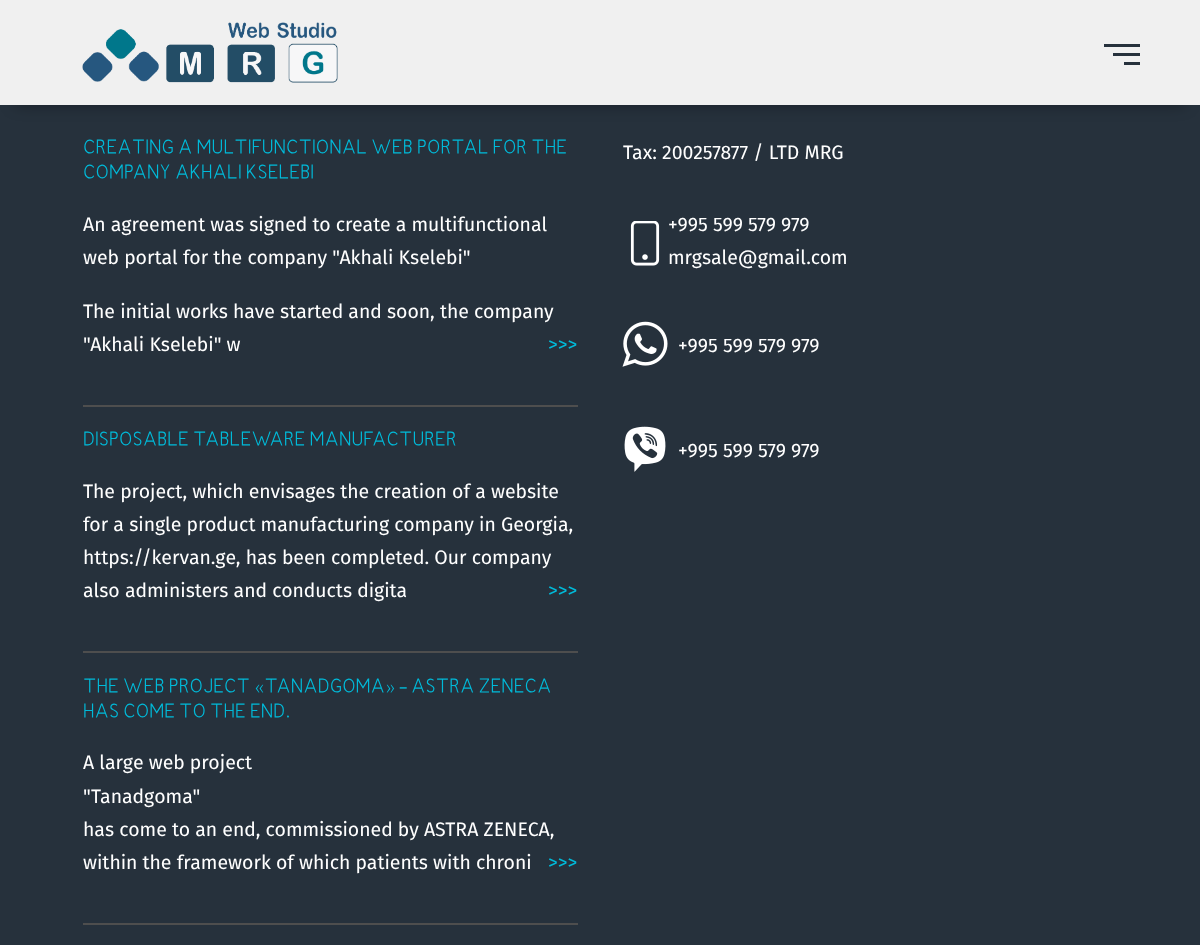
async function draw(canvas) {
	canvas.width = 1200;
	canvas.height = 945;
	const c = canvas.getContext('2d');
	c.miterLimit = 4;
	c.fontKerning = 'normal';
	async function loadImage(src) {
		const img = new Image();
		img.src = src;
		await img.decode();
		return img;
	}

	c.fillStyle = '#26313c';
	c.fillRect(0, 0, 1200, 945);
	c.fillStyle = '#00000059';
	c.filter = 'blur(7.5px)';
	c.beginPath();
	c.rect(15, 30, 1170, 75);
	c.fill();
	c.filter = 'none';
	c.fillStyle = '#f0f0f0';
	c.fillRect(0, 0, 1200, 105);
	c.drawImage(await loadImage('img1.png'), 82, 22, 256, 61);
	for (const [x, y, w, h, color] of [
		[1104, 44, 36, 3, '#26313c'],
		[1113, 53, 27, 3, '#26313c'],
		[1124, 62, 16, 3, '#26313c'],
		[83, 405, 495, 2, '#4e4e4e'],
	]) {
		c.fillStyle = color;
		c.fillRect(x, y, w, h);
	}
	c.font = '21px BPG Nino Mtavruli';
	c.fillStyle = '#00bad9';
	c.fillText('CREATING A MULTIFUNCTIONAL WEB PORTAL FOR THE', 83, 155);
	c.fillText('COMPANY AKHALI KSELEBI', 83, 180);
	c.font = '19.5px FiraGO';
	c.fillStyle = '#fff';
	for (const [text, x, y] of [
		['An agreement was signed to create a multifunctional', 83, 231],
		['web portal for the company "Akhali Kselebi"', 83, 264],
		['The initial works have started and soon, the company', 83, 318],
		['"Akhali Kselebi" w', 83, 351],
	]) {
		c.fillText(text, x, y);
	}
	c.fillStyle = '#00bad9';
	c.fillText('>>>', 548, 351);
	c.fillStyle = '#4e4e4e';
	c.fillRect(83, 651, 495, 2);
	c.font = '21px BPG Nino Mtavruli';
	c.fillStyle = '#00bad9';
	c.fillText('DISPOSABLE TABLEWARE MANUFACTURER', 83, 447);
	c.font = '19.5px FiraGO';
	c.fillStyle = '#fff';
	for (const [text, x, y] of [
		['The project, which envisages the creation of a website', 83, 498],
		['for a single product manufacturing company in Georgia,', 83, 531],
		['https://kervan.ge, has been completed. Our company', 83, 564],
		['also administers and conducts digita', 83, 597],
	]) {
		c.fillText(text, x, y);
	}
	c.fillStyle = '#00bad9';
	c.fillText('>>>', 548, 597);
	c.fillStyle = '#4e4e4e';
	c.fillRect(83, 923, 495, 2);
	c.font = '21px BPG Nino Mtavruli';
	c.fillStyle = '#00bad9';
	c.fillText('THE WEB PROJECT «TANADGOMA» - ASTRA ZENECA', 83, 694);
	c.fillText('HAS COME TO THE END.', 83, 719);
	c.font = '19.5px FiraGO';
	c.fillStyle = '#fff';
	for (const [text, x, y] of [
		['A large web project', 83, 769],
		['"Tanadgoma"', 83, 803],
		['has come to an end, commissioned by ASTRA ZENECA,', 83, 836],
		['within the framework of which patients with chroni', 83, 869],
	]) {
		c.fillText(text, x, y);
	}
	c.fillStyle = '#00bad9';
	c.fillText('>>>', 548, 869);
	c.fillStyle = '#fff';
	c.fillText('Tax: 200257877 / LTD MRG', 623, 159);
	c.drawImage(await loadImage('img2.png'), 630, 221, 30, 45);
	c.fillText('+995 599 579 979', 668, 231);
	c.fillText('mrgsale@gmail.com', 668, 264);
	c.drawImage(await loadImage('img3.png'), 622, 321, 46, 46);
	c.fillText('+995 599 579 979', 678, 352);
	c.drawImage(await loadImage('img4.png'), 624, 426, 42, 46);
	c.fillText('+995 599 579 979', 678, 457);
}

draw(document.querySelector('canvas'));
